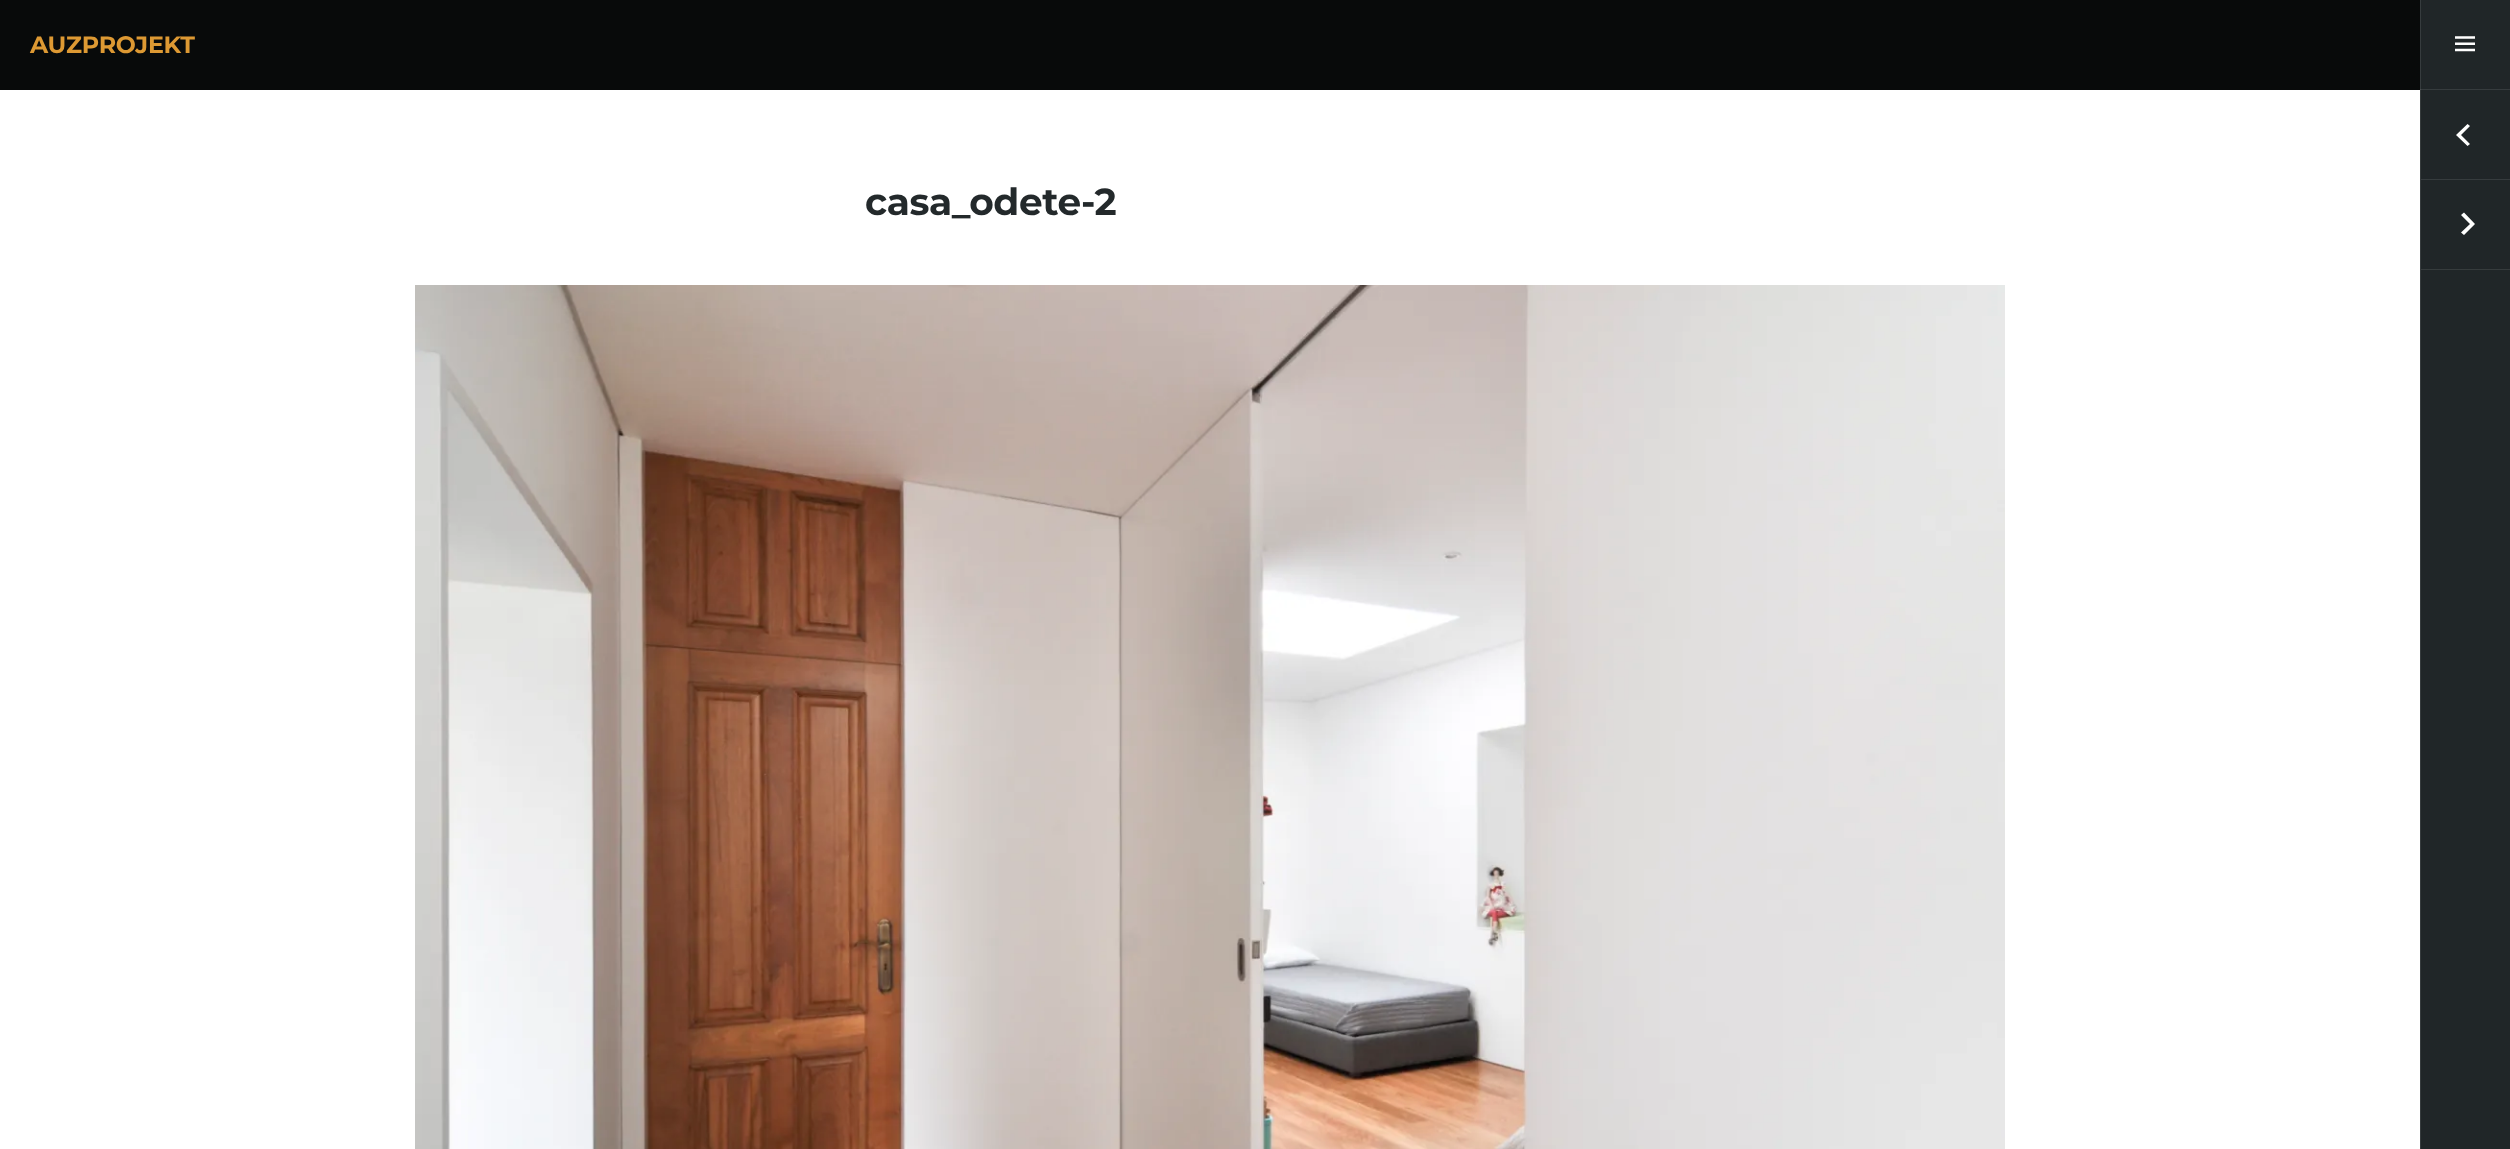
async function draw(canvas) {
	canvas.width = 2510;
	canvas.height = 1149;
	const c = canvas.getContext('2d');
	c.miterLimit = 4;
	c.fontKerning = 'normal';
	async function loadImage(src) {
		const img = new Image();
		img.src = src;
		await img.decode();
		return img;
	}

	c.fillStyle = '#fff';
	c.fillRect(0, 0, 2510, 1149);
	c.fillStyle = '#080a0a';
	c.fillRect(0, 0, 2420, 90);
	c.letterSpacing = '-0.25px';
	c.font = 'bold 23.75px Montserrat';
	c.fillStyle = '#d93';
	c.fillText('AUZPROJEKT', 30, 53);
	c.fillStyle = '#202628';
	c.fillRect(2421, 0, 89, 1149);
	c.drawImage(await loadImage('img1.png'), 2455, 36, 20, 16);
	c.letterSpacing = '-0.4px';
	c.font = 'bold 37.5px Montserrat';
	c.fillStyle = '#23292b';
	c.fillText('casa_odete-2', 865, 215);
	c.drawImage(await loadImage('img2.png'), 415, 285, 1590, 864);
	for (const [x, y, w, h, color] of [
		[2420, 89, 90, 1, '#363c3e'],
		[2420, 0, 1, 1149, '#363c3e'],
		[2420, 90, 1, 180, '#202628'],
	]) {
		c.fillStyle = color;
		c.fillRect(x, y, w, h);
	}
	c.fillStyle = '#363c3e';
	c.beginPath();
	c.moveTo(2510, 180);
	c.lineTo(2420, 180);
	c.lineTo(2421, 179);
	c.lineTo(2510, 179);
	c.closePath();
	c.fill();
	c.fillStyle = '#ffffff1a';
	c.beginPath();
	c.moveTo(2420, 180);
	c.lineTo(2420, 90);
	c.lineTo(2421, 90);
	c.lineTo(2421, 179);
	c.closePath();
	c.fill();
	c.fillStyle = '#fff';
	c.beginPath();
	c.moveTo(2470, 144);
	c.lineTo(2467.5, 146);
	c.lineTo(2456, 135);
	c.lineTo(2467.5, 124);
	c.lineTo(2470, 126);
	c.lineTo(2461, 135);
	c.closePath();
	c.fill();
	c.fillStyle = '#363c3e';
	c.beginPath();
	c.moveTo(2420, 270);
	c.lineTo(2420, 180);
	c.lineTo(2421, 180);
	c.lineTo(2421, 269);
	c.closePath();
	c.fill();
	c.fillStyle = '#ffffff1a';
	c.beginPath();
	c.moveTo(2510, 270);
	c.lineTo(2420, 270);
	c.lineTo(2421, 269);
	c.lineTo(2510, 269);
	c.closePath();
	c.fill();
	c.fillStyle = '#fff';
	c.beginPath();
	c.moveTo(2461, 215);
	c.lineTo(2464, 212.5);
	c.lineTo(2475, 224);
	c.lineTo(2464, 235);
	c.lineTo(2461, 232.5);
	c.lineTo(2470, 224);
	c.closePath();
	c.fill();
	c.fillStyle = '#4a5051';
	c.fillRect(2420, 89, 1, 1);
}

draw(document.querySelector('canvas'));
